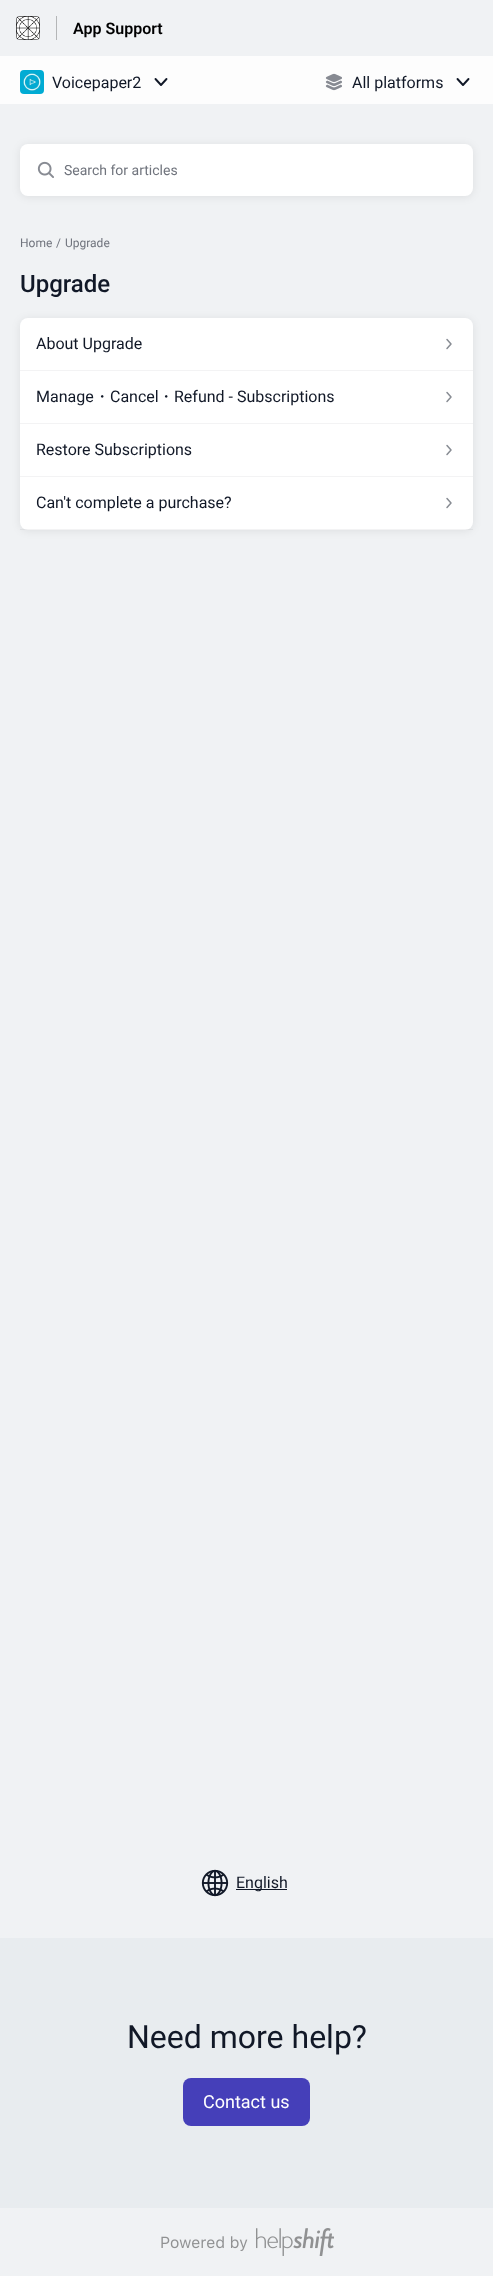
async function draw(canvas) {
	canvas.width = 493;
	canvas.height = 2276;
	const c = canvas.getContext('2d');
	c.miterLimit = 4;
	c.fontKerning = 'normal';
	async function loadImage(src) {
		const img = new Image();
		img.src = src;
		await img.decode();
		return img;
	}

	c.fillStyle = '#fdfdfd';
	c.fillRect(0, 0, 493, 2276);
	c.fillStyle = '#f0f2f4';
	c.fillRect(0, 0, 493, 56);
	c.fillStyle = '#b4b6b7';
	c.fillRect(56, 16, 1, 24);
	c.drawImage(await loadImage('img1.png'), 16, 16, 24, 24);
	c.font = '600 16px Roboto';
	c.fillStyle = '#000';
	c.fillText('App Support', 73, 34);
	c.drawImage(await loadImage('img2.png'), 20, 70, 24, 24);
	c.font = '16px Roboto';
	c.fillStyle = '#111827';
	c.fillText('Voicepaper2', 52, 88);
	c.beginPath();
	c.moveTo(155.5, 79);
	c.lineTo(161, 85);
	c.lineTo(166.5, 79);
	c.strokeStyle = '#111827';
	c.lineWidth = 1.9;
	c.lineCap = 'round';
	c.lineJoin = 'round';
	c.stroke();
	c.drawImage(await loadImage('img3.png'), 325, 73, 17, 18);
	c.fillText('All platforms', 352, 88);
	c.beginPath();
	c.moveTo(457.5, 79);
	c.lineTo(463, 85);
	c.lineTo(468.5, 79);
	c.stroke();
	c.fillStyle = '#f0f2f4';
	c.fillRect(0, 104, 493, 2172);
	c.fillStyle = '#00000014';
	c.filter = 'blur(4px)';
	c.beginPath();
	c.roundRect(20, 145, 453, 52, 8);
	c.fill();
	c.filter = 'none';
	c.fillStyle = '#fff';
	c.beginPath();
	c.roundRect(20, 144, 453, 52, 8);
	c.fill();
	c.drawImage(await loadImage('img4.png'), 37, 161, 17, 17);
	c.font = '14px Roboto';
	c.fillStyle = '#70747d';
	c.fillText('Search for articles', 64, 175);
	c.font = '12px Roboto';
	for (const [text, x, y] of [
		['Home', 20, 247],
		['/', 56, 247],
		['Upgrade', 65, 247],
	]) {
		c.fillText(text, x, y);
	}
	c.font = '500 24px Roboto';
	c.fillStyle = '#111827';
	c.fillText('Upgrade', 20, 292);
	c.fillStyle = '#00000014';
	c.filter = 'blur(4px)';
	c.beginPath();
	c.roundRect(20, 319, 453, 212, 8);
	c.fill();
	c.filter = 'none';
	c.fillStyle = '#fff';
	c.beginPath();
	c.roundRect(20, 318, 453, 212, 8);
	c.fill();
	c.fillStyle = '#f3f3f4';
	c.fillRect(20, 370, 453, 1);
	c.font = '16px Roboto';
	c.fillStyle = '#111827';
	c.fillText('About Upgrade', 36, 349);
	c.beginPath();
	c.moveTo(447, 339.5);
	c.lineTo(451, 344);
	c.lineTo(447, 348.5);
	c.strokeStyle = '#888c93';
	c.lineWidth = 1.5;
	c.stroke();
	c.fillStyle = '#f3f3f4';
	c.fillRect(20, 423, 453, 1);
	c.fillStyle = '#111827';
	c.fillText('Manage', 36, 402);
	c.font = '500 16px WenQuanYi Zen Hei';
	c.fillText('・', 94, 402);
	c.font = '16px Roboto';
	c.fillText('Cancel', 110, 402);
	c.font = '500 16px WenQuanYi Zen Hei';
	c.fillText('・', 158, 402);
	c.font = '16px Roboto';
	c.fillText('Refund - Subscriptions', 174, 402);
	c.beginPath();
	c.moveTo(447, 392.5);
	c.lineTo(451, 397);
	c.lineTo(447, 401.5);
	c.stroke();
	c.fillStyle = '#f3f3f4';
	c.fillRect(20, 476, 453, 1);
	c.fillStyle = '#111827';
	c.fillText('Restore Subscriptions', 36, 455);
	c.beginPath();
	c.moveTo(447, 445.5);
	c.lineTo(451, 450);
	c.lineTo(447, 454.5);
	c.stroke();
	c.fillStyle = '#1118270d';
	c.fillRect(20, 529, 453, 1);
	c.fillStyle = '#111827';
	c.fillText('Can\'t complete a purchase?', 36, 508);
	c.beginPath();
	c.moveTo(447, 498.5);
	c.lineTo(451, 503);
	c.lineTo(447, 507.5);
	c.stroke();
	c.drawImage(await loadImage('img5.png'), 201, 1869, 28, 28);
	c.fillRect(236, 1889, 51, 1);
	c.fillText('English', 236, 1888);
	c.fillStyle = '#e8ecef';
	c.fillRect(0, 1938, 493, 270);
	c.font = '32px Roboto';
	c.fillStyle = '#111827';
	c.fillText('Need more help?', 127, 2048);
	c.fillStyle = '#453fb9';
	c.beginPath();
	c.roundRect(183, 2078, 127, 48, 8);
	c.fill();
	c.font = '18px Roboto';
	c.fillStyle = '#fff';
	c.fillText('Contact us', 203, 2108);
	c.drawImage(await loadImage('img6.png'), 161, 2228, 173, 28);
}

draw(document.querySelector('canvas'));
